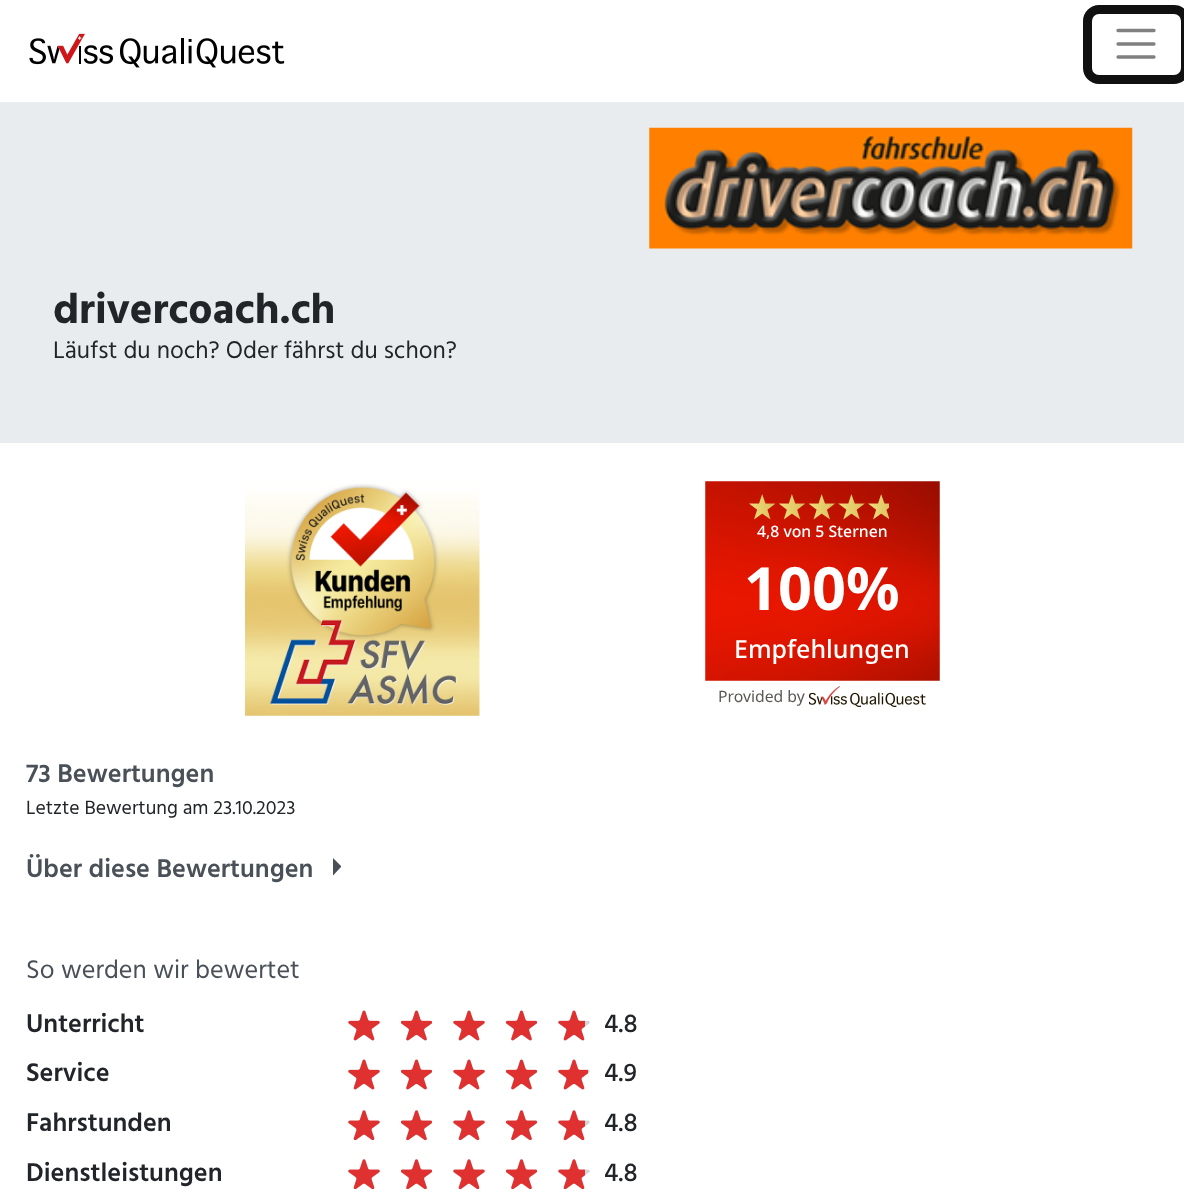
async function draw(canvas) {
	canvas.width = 1184;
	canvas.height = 1192;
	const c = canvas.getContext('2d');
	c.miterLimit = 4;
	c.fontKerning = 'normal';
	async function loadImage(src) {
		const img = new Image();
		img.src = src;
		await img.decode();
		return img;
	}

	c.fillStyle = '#e9ecef';
	c.fillRect(0, 0, 1184, 1192);
	c.fillStyle = '#fff';
	c.fillRect(0, 0, 1184, 102);
	c.drawImage(await loadImage('img1.png'), 29, 33, 256, 35);
	c.beginPath();
	c.moveTo(1118, 30.5);
	c.lineTo(1154, 30.5);
	c.moveTo(1118, 44);
	c.lineTo(1154, 44);
	c.moveTo(1118, 57);
	c.lineTo(1154, 57);
	c.strokeStyle = '#808080';
	c.lineWidth = 3.3;
	c.lineCap = 'round';
	c.stroke();
	c.beginPath();
	c.roundRect(1087.5, 9.5, 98, 70, 11.5);
	c.strokeStyle = '#101010';
	c.lineWidth = 9;
	c.stroke();
	c.drawImage(await loadImage('img2.png'), 649, 127, 484, 122);
	c.font = 'bold 42.75px Hind';
	c.fillStyle = '#212529';
	c.fillText('drivercoach.ch', 53, 323);
	c.font = '24.6px Hind';
	c.fillText('Läufst du noch? Oder fährst du schon?', 53, 358);
	c.fillStyle = '#fff';
	c.fillRect(0, 443, 1184, 749);
	c.drawImage(await loadImage('img3.png'), 245, 483, 235, 233);
	c.drawImage(await loadImage('img4.png'), 705, 481, 235, 200);
	c.drawImage(await loadImage('img5.png'), 749, 494, 26, 26);
	c.drawImage(await loadImage('img6.png'), 779, 494, 26, 26);
	c.drawImage(await loadImage('img7.png'), 809, 494, 26, 26);
	c.drawImage(await loadImage('img8.png'), 838, 494, 27, 26);
	c.drawImage(await loadImage('img9.png'), 868, 494, 21, 26);
	c.font = '500 15.75px Noto Sans';
	c.fillText('4,8 von 5 Sternen', 757, 537);
	c.font = 'bold 59.5px Noto Sans';
	c.fillText('100%', 744, 610);
	c.font = '500 25px Noto Sans';
	c.fillText('Empfehlungen', 734, 658);
	c.font = '15.75px Noto Sans';
	c.fillStyle = '#5b5753';
	c.fillText('Provided by', 718, 702);
	c.drawImage(await loadImage('img10.png'), 809, 686, 117, 21);
	c.font = '600 26.25px Hind';
	c.fillStyle = '#495057';
	c.fillText('73 Bewertungen', 26, 782);
	c.font = '19.75px Hind';
	c.fillStyle = '#212529';
	c.fillText('Letzte Bewertung am 23.10.2023', 26, 814);
	c.font = '600 26.25px Hind';
	c.fillStyle = '#495057';
	c.fillText('Über diese Bewertungen', 26, 877);
	c.save();
	c.beginPath();
	c.rect(333, 858, 8, 19);
	c.clip();
	c.beginPath();
	c.moveTo(332.5, 876);
	c.lineTo(332.5, 857.5);
	c.lineTo(341.5, 866.5);
	c.closePath();
	c.fill();
	c.restore();
	c.font = '26.25px Hind';
	c.fillText('So werden wir bewertet', 26, 978);
	c.font = '600 26.25px Hind';
	c.fillStyle = '#212529';
	c.fillText('Unterricht', 26, 1032);
	c.drawImage(await loadImage('img11.png'), 348, 1010, 32, 31);
	c.drawImage(await loadImage('img12.png'), 348, 1010, 32, 31);
	c.drawImage(await loadImage('img13.png'), 401, 1010, 31, 31);
	c.drawImage(await loadImage('img14.png'), 401, 1010, 31, 31);
	c.drawImage(await loadImage('img11.png'), 453, 1010, 32, 31);
	c.drawImage(await loadImage('img12.png'), 453, 1010, 32, 31);
	c.drawImage(await loadImage('img13.png'), 506, 1010, 31, 31);
	c.drawImage(await loadImage('img14.png'), 506, 1010, 31, 31);
	c.drawImage(await loadImage('img11.png'), 558, 1010, 32, 31);
	c.drawImage(await loadImage('img15.png'), 558, 1010, 27, 31);
	c.font = '500 26.25px Hind';
	c.fillText('4.8', 604, 1032);
	c.font = '600 26.25px Hind';
	c.fillText('Service', 26, 1081);
	c.drawImage(await loadImage('img11.png'), 348, 1059, 32, 31);
	c.drawImage(await loadImage('img12.png'), 348, 1059, 32, 31);
	c.drawImage(await loadImage('img13.png'), 401, 1059, 31, 31);
	c.drawImage(await loadImage('img14.png'), 401, 1059, 31, 31);
	c.drawImage(await loadImage('img11.png'), 453, 1059, 32, 31);
	c.drawImage(await loadImage('img12.png'), 453, 1059, 32, 31);
	c.drawImage(await loadImage('img13.png'), 506, 1059, 31, 31);
	c.drawImage(await loadImage('img14.png'), 506, 1059, 31, 31);
	c.drawImage(await loadImage('img11.png'), 558, 1059, 32, 31);
	c.drawImage(await loadImage('img16.png'), 558, 1059, 30, 31);
	c.font = '500 26.25px Hind';
	c.fillText('4.9', 604, 1081);
	c.font = '600 26.25px Hind';
	c.fillText('Fahrstunden', 26, 1131);
	c.drawImage(await loadImage('img17.png'), 348, 1110, 32, 30);
	c.drawImage(await loadImage('img18.png'), 348, 1110, 32, 31);
	c.drawImage(await loadImage('img19.png'), 401, 1110, 31, 30);
	c.drawImage(await loadImage('img20.png'), 401, 1110, 31, 31);
	c.drawImage(await loadImage('img17.png'), 453, 1110, 32, 30);
	c.drawImage(await loadImage('img18.png'), 453, 1110, 32, 31);
	c.drawImage(await loadImage('img19.png'), 506, 1110, 31, 30);
	c.drawImage(await loadImage('img20.png'), 506, 1110, 31, 31);
	c.drawImage(await loadImage('img17.png'), 558, 1110, 32, 30);
	c.drawImage(await loadImage('img21.png'), 558, 1110, 27, 31);
	c.font = '500 26.25px Hind';
	c.fillText('4.8', 604, 1131);
	c.font = '600 26.25px Hind';
	c.fillText('Dienstleistungen', 26, 1181);
	c.drawImage(await loadImage('img17.png'), 348, 1159, 32, 30);
	c.drawImage(await loadImage('img18.png'), 348, 1159, 32, 31);
	c.drawImage(await loadImage('img19.png'), 401, 1159, 31, 30);
	c.drawImage(await loadImage('img20.png'), 401, 1159, 31, 31);
	c.drawImage(await loadImage('img17.png'), 453, 1159, 32, 30);
	c.drawImage(await loadImage('img18.png'), 453, 1159, 32, 31);
	c.drawImage(await loadImage('img19.png'), 506, 1159, 31, 30);
	c.drawImage(await loadImage('img20.png'), 506, 1159, 31, 31);
	c.drawImage(await loadImage('img17.png'), 558, 1159, 32, 30);
	c.drawImage(await loadImage('img21.png'), 558, 1159, 27, 31);
	c.font = '500 26.25px Hind';
	c.fillText('4.8', 604, 1181);
}

draw(document.querySelector('canvas'));
